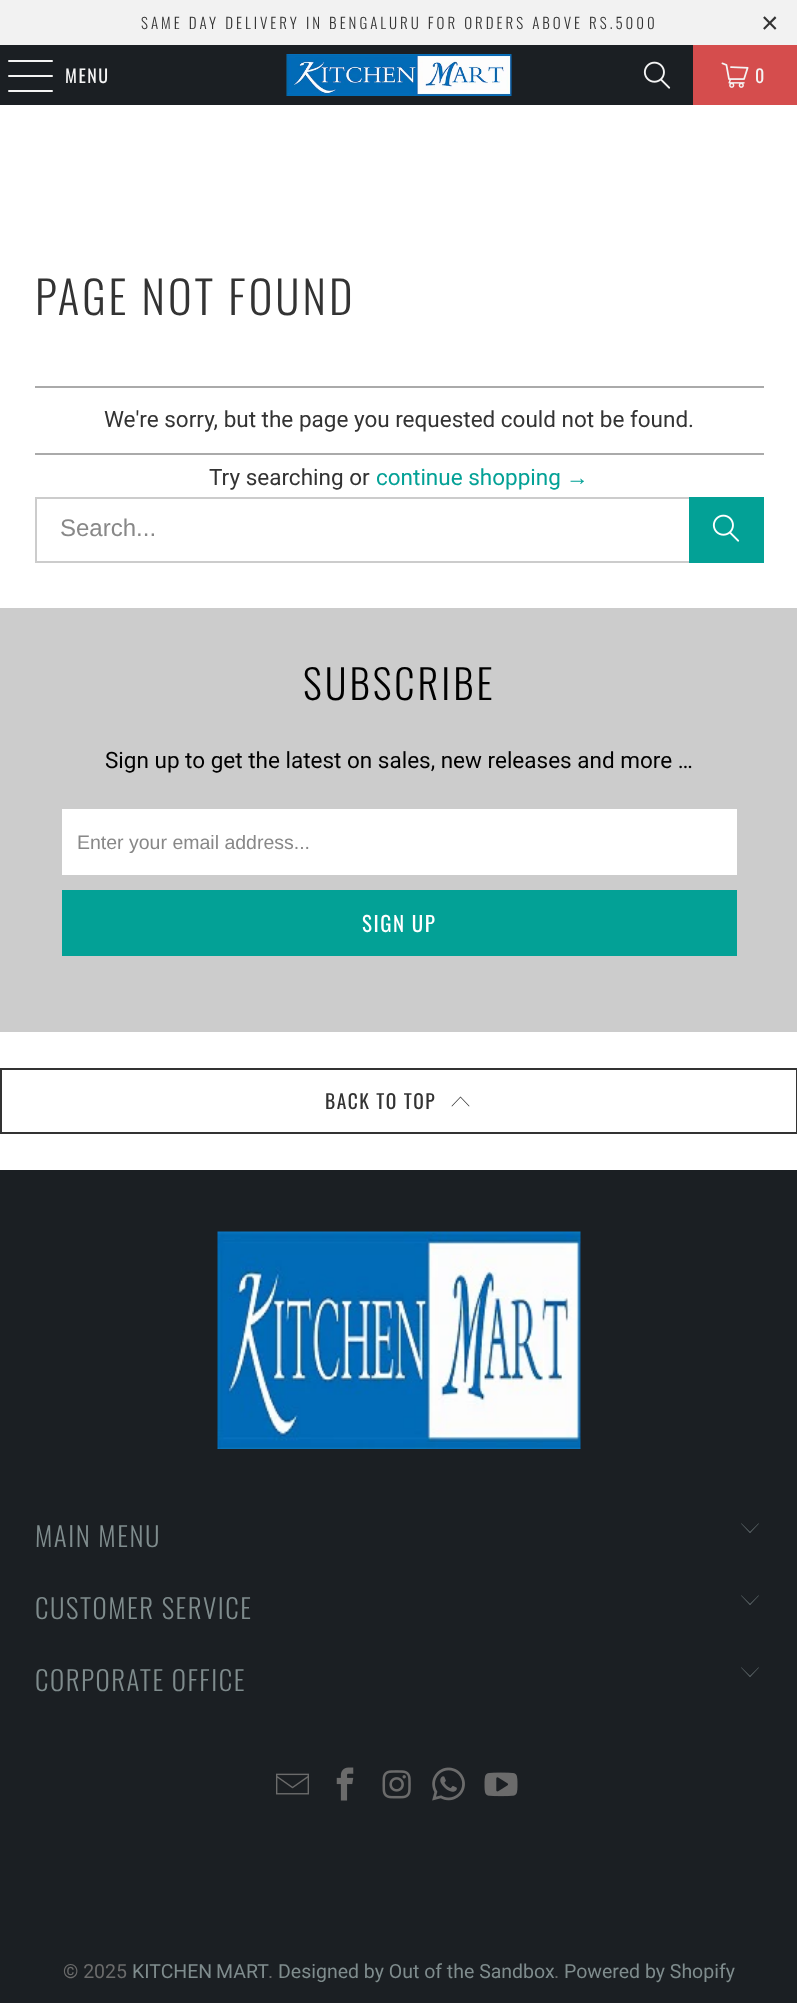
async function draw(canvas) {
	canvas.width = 797;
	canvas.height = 2003;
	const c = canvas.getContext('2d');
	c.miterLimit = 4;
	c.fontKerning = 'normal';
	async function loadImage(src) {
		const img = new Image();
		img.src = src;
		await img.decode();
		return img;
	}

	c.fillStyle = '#fff';
	c.fillRect(0, 0, 797, 2003);
	c.fillStyle = '#f2f2f2';
	c.fillRect(0, 0, 797, 45);
	c.letterSpacing = '3px';
	c.font = '300 15px Oswald';
	c.fillStyle = '#333';
	c.fillText('SAME DAY DELIVERY IN BENGALURU FOR ORDERS ABOVE RS.5000', 141, 29);
	c.font = '30px Liberation Sans';
	c.fillText('×', 761, 33);
	c.fillStyle = '#1b1f23';
	c.fillRect(0, 45, 693, 60);
	c.fillStyle = '#f4f4f4';
	c.beginPath();
	c.roundRect(8, 60, 45, 2, 1);
	c.fill();
	c.beginPath();
	c.roundRect(8, 75, 45, 2, 1);
	c.fill();
	c.beginPath();
	c.roundRect(8, 90, 45, 2, 1);
	c.fill();
	c.letterSpacing = '1.5px';
	c.font = '18px Oswald';
	c.fillText('MENU', 65, 83);
	c.drawImage(await loadImage('img1.png'), 286, 54, 226, 42);
	c.drawImage(await loadImage('img2.png'), 643, 61, 28, 28);
	c.fillStyle = '#d54d4d';
	c.fillRect(693, 45, 104, 60);
	c.drawImage(await loadImage('img3.png'), 721, 62, 28, 26);
	c.fillStyle = '#f4f4f4';
	c.fillText('0', 755, 83);
	c.letterSpacing = '3px';
	c.font = '300 45px Oswald';
	c.fillStyle = '#333';
	c.fillText('PAGE NOT FOUND', 35, 315);
	c.fillStyle = '#aaa';
	c.fillRect(35, 386, 729, 2);
	c.fillRect(35, 453, 729, 2);
	c.letterSpacing = '0px';
	c.font = '22.5px Roboto';
	c.fillStyle = '#333';
	c.fillText('We\'re sorry, but the page you requested could not be found.', 104, 427);
	c.fillText('Try searching or', 209, 485);
	c.fillStyle = '#03a196';
	c.fillText('continue shopping', 376, 485);
	c.font = '22.5px Liberation Sans';
	c.fillText('→', 566, 485);
	c.strokeStyle = '#ccc';
	c.lineWidth = 2;
	c.strokeRect(36, 498, 727, 64);
	c.font = '24px Liberation Sans';
	c.fillStyle = '#888';
	c.fillText('Search...', 60, 536);
	c.fillStyle = '#03a196';
	c.fillRect(689, 497, 75, 66);
	c.drawImage(await loadImage('img4.png'), 712, 514, 28, 28);
	c.fillStyle = '#ccc';
	c.fillRect(0, 608, 797, 424);
	c.letterSpacing = '3px';
	c.font = '300 40.5px Oswald';
	c.fillStyle = '#000';
	c.fillText('SUBSCRIBE', 303, 700);
	c.letterSpacing = '0px';
	c.font = '22.5px Roboto';
	c.fillText('Sign up to get the latest on sales, new releases and more …', 105, 768);
	c.fillStyle = '#fff';
	c.fillRect(62, 809, 675, 66);
	c.font = '19.5px Liberation Sans';
	c.fillStyle = '#888';
	c.fillText('Enter your email address...', 77, 849);
	c.fillStyle = '#03a196';
	c.fillRect(62, 890, 675, 66);
	c.letterSpacing = '1.5px';
	c.font = '21px Oswald';
	c.fillStyle = '#fff';
	c.fillText('SIGN UP', 362, 932);
	c.strokeStyle = '#333';
	c.strokeRect(1, 1069, 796, 64);
	c.font = '19.5px Oswald';
	c.fillStyle = '#333';
	c.fillText('BACK TO TOP', 325, 1109);
	c.beginPath();
	c.moveTo(460.5, 1096.5);
	c.lineTo(469.5, 1106);
	c.lineTo(469, 1106.5);
	c.lineTo(460.5, 1097.5);
	c.lineTo(452, 1106.5);
	c.lineTo(451.5, 1106);
	c.closePath();
	c.fill();
	c.fillStyle = '#1b1f23';
	c.fillRect(0, 1170, 797, 833);
	c.drawImage(await loadImage('img5.png'), 217, 1231, 364, 218);
	c.font = '300 27px Oswald';
	c.fillStyle = '#7f8c8d';
	c.fillText('MAIN MENU', 35, 1547);
	c.beginPath();
	c.moveTo(750, 1533);
	c.lineTo(741, 1523.5);
	c.lineTo(741.5, 1523.5);
	c.lineTo(750, 1532);
	c.lineTo(758.5, 1523.5);
	c.lineTo(759, 1523.5);
	c.closePath();
	c.fill();
	c.fillText('CUSTOMER SERVICE', 35, 1619);
	c.beginPath();
	c.moveTo(750, 1605);
	c.lineTo(741, 1595.5);
	c.lineTo(741.5, 1595.5);
	c.lineTo(750, 1604);
	c.lineTo(758.5, 1595.5);
	c.lineTo(759, 1595.5);
	c.closePath();
	c.fill();
	c.fillText('CORPORATE OFFICE', 35, 1691);
	c.beginPath();
	c.moveTo(750, 1677);
	c.lineTo(741, 1667.5);
	c.lineTo(741.5, 1667.5);
	c.lineTo(750, 1676);
	c.lineTo(758.5, 1667.5);
	c.lineTo(759, 1667.5);
	c.closePath();
	c.fill();
	c.drawImage(await loadImage('img6.png'), 276, 1773, 33, 22);
	c.drawImage(await loadImage('img7.png'), 336, 1767, 18, 34);
	c.drawImage(await loadImage('img8.png'), 382, 1770, 29, 29);
	c.drawImage(await loadImage('img9.png'), 432, 1767, 33, 34);
	c.drawImage(await loadImage('img10.png'), 484, 1772, 34, 25);
	c.letterSpacing = '0px';
	c.font = '19.5px Roboto';
	c.fillStyle = '#6b6b6b';
	c.fillText('© 2025', 63, 1978);
	c.wordSpacing = '-1px';
	c.fillStyle = '#7f8c8d';
	c.fillText('KITCHEN MART', 132, 1978);
	c.wordSpacing = '0px';
	c.fillStyle = '#6b6b6b';
	c.fillText('.', 268, 1978);
	c.fillStyle = '#7f8c8d';
	c.fillText('Designed by Out of the Sandbox', 278, 1978);
	c.fillStyle = '#6b6b6b';
	c.fillText('.', 554, 1978);
	c.fillStyle = '#7f8c8d';
	c.fillText('Powered by Shopify', 564, 1978);
}

draw(document.querySelector('canvas'));
